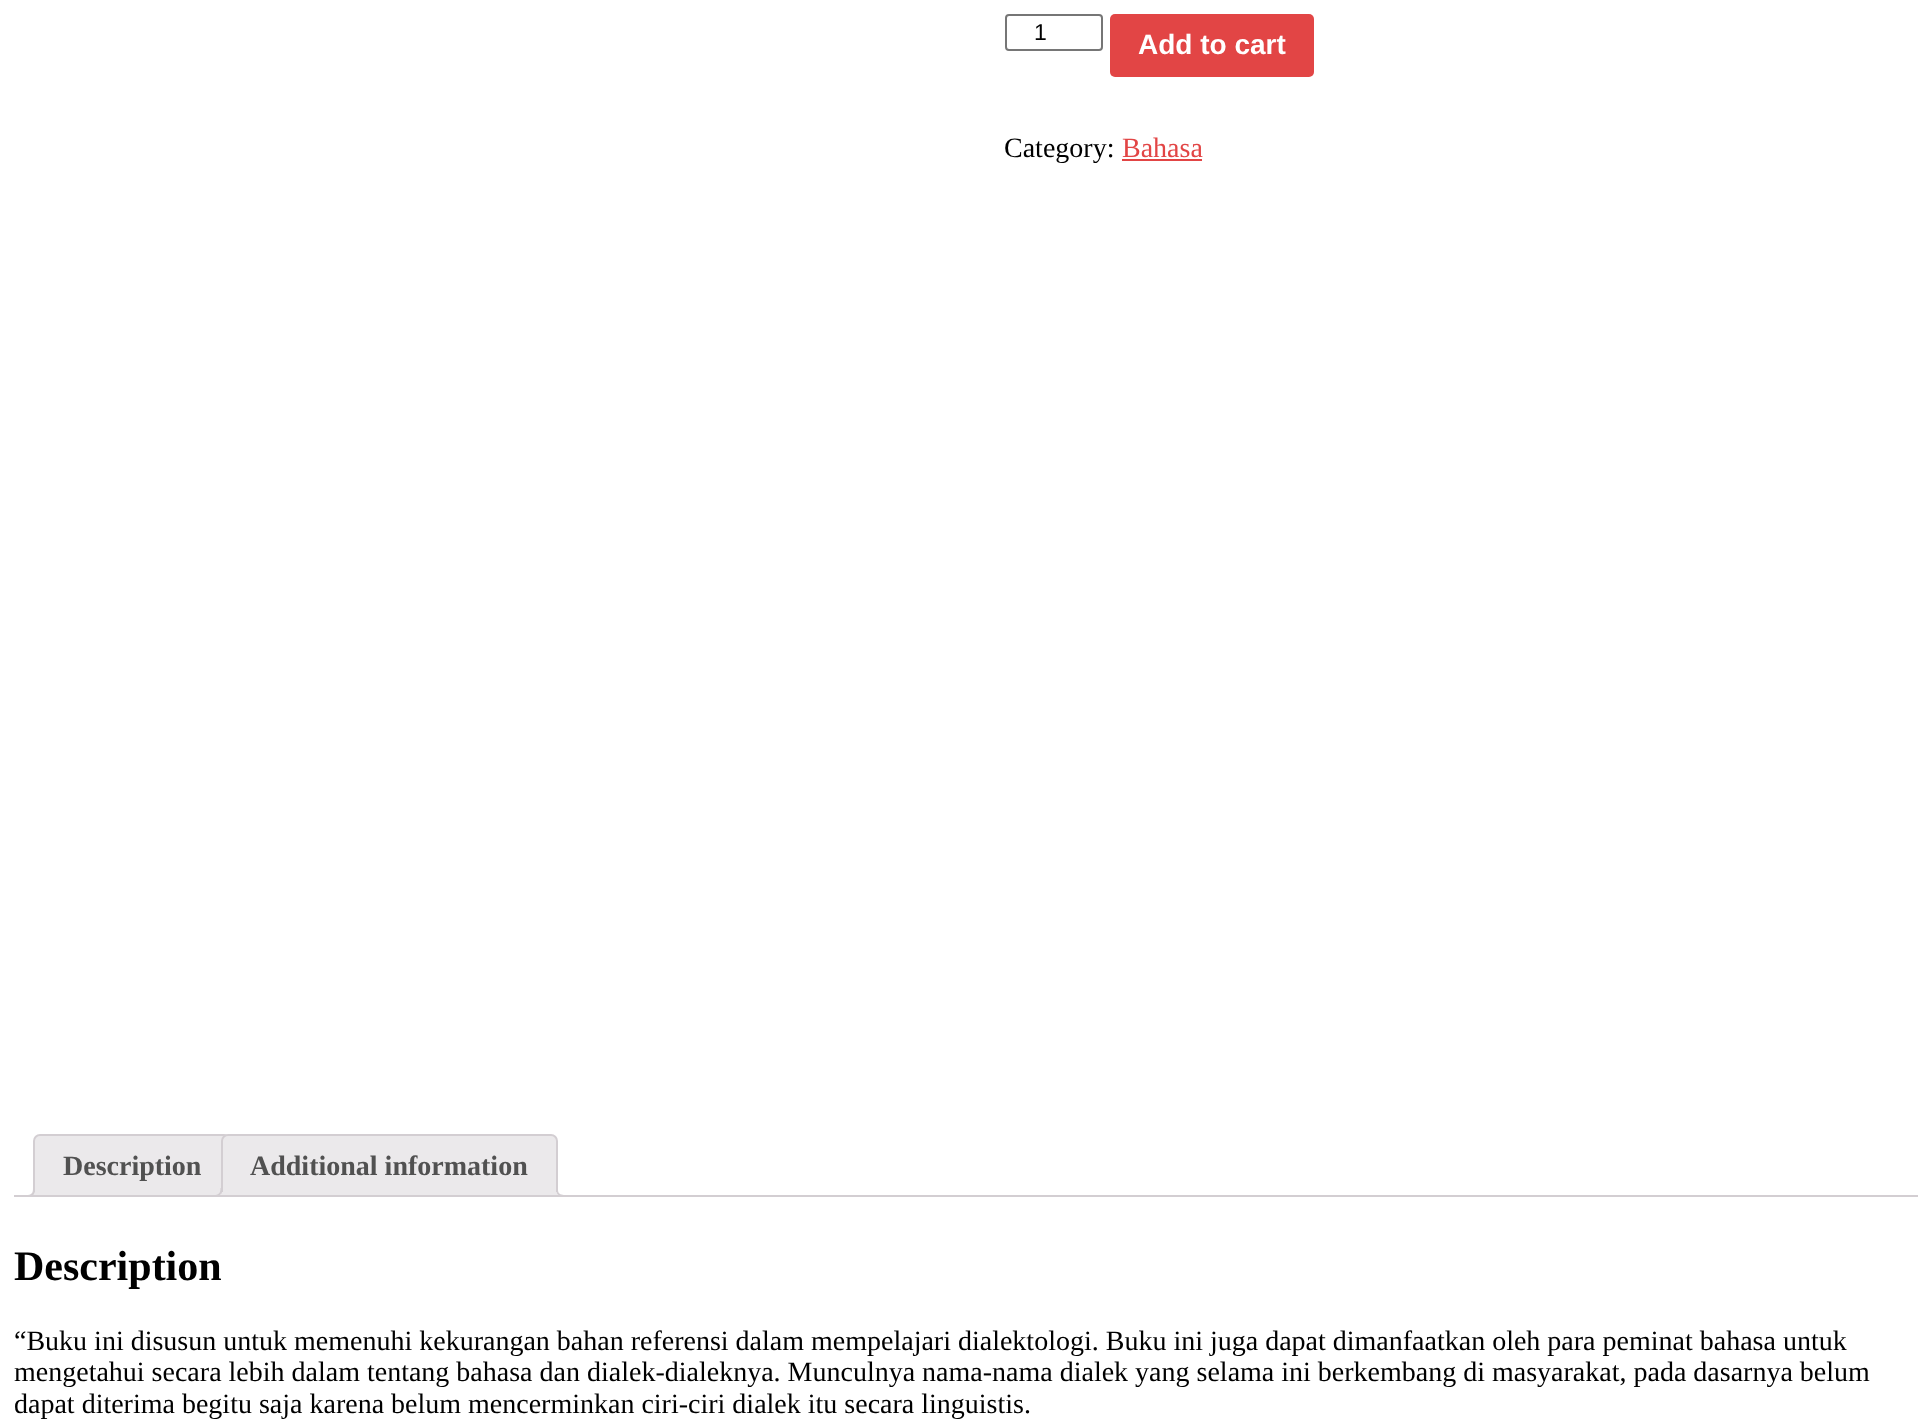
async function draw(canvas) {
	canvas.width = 1932;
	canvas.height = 1420;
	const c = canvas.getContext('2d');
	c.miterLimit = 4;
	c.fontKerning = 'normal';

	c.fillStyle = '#fff';
	c.fillRect(0, 0, 1932, 1420);
	c.beginPath();
	c.roundRect(1006, 15, 96, 35, 3);
	c.strokeStyle = '#767676';
	c.lineWidth = 2;
	c.stroke();
	c.font = '23px Liberation Sans';
	c.fillStyle = '#000';
	c.fillText('1', 1034, 40);
	c.fillStyle = '#e24545';
	c.beginPath();
	c.roundRect(1110, 14, 204, 63, 5);
	c.fill();
	c.font = 'bold 28px Liberation Sans';
	c.fillStyle = '#fff';
	c.fillText('Add to cart', 1138, 54);
	c.font = '28px Liberation Serif';
	c.fillStyle = '#000';
	c.fillText('Category:', 1004, 157);
	c.fillStyle = '#e24545';
	c.fillText('Bahasa', 1122, 157);
	c.fillRect(1122, 159, 80, 2);
	c.fillStyle = '#ebe9eb';
	c.beginPath();
	c.roundRect(34, 1135, 196, 61, [6, 6, 0, 0]);
	c.fill();
	c.strokeStyle = '#d3ced2';
	c.stroke();
	c.font = 'bold 28px Liberation Serif';
	c.fillStyle = '#515151';
	c.fillText('Description', 63, 1175);
	c.save();
	c.beginPath();
	c.rect(14, 1134, 1904, 63);
	c.clip();
	c.fillStyle = '#ebe9eb';
	c.beginPath();
	c.moveTo(30, 1196.5);
	c.lineTo(30, 1201);
	c.bezierCurveTo(36.5, 1201, 39, 1198.5, 39, 1192);
	c.lineTo(34.5, 1192);
	c.bezierCurveTo(34, 1194.5, 32.5, 1196, 30, 1196.5);
	c.closePath();
	c.fill();
	c.restore();
	c.fillStyle = '#d3ced2';
	c.beginPath();
	c.moveTo(26, 1188);
	c.lineTo(35, 1188);
	c.bezierCurveTo(35, 1194.5, 32.5, 1197, 26, 1197);
	c.closePath();
	c.moveTo(26, 1188);
	c.lineTo(33, 1188);
	c.bezierCurveTo(33, 1193.5, 31.5, 1195, 26, 1195);
	c.closePath();
	c.fill('evenodd');
	c.fillStyle = '#ebe9eb';
	c.beginPath();
	c.roundRect(222, 1135, 335, 61, [6, 6, 0, 0]);
	c.fill();
	c.stroke();
	c.fillStyle = '#515151';
	c.fillText('Additional information', 250, 1175);
	c.save();
	c.beginPath();
	c.rect(14, 1134, 1904, 63);
	c.clip();
	c.fillStyle = '#ebe9eb';
	c.beginPath();
	c.moveTo(217, 1197);
	c.lineTo(217, 1201);
	c.bezierCurveTo(223.5, 1201, 226, 1198.5, 226, 1192);
	c.lineTo(222, 1192);
	c.bezierCurveTo(221.5, 1194.5, 219.5, 1196, 217, 1197);
	c.closePath();
	c.fill();
	c.restore();
	c.fillStyle = '#d3ced2';
	c.beginPath();
	c.moveTo(213.5, 1188);
	c.lineTo(222, 1188);
	c.bezierCurveTo(222, 1194.5, 219.5, 1197, 213.5, 1197);
	c.closePath();
	c.moveTo(213.5, 1188);
	c.lineTo(220.5, 1188);
	c.bezierCurveTo(220.5, 1193.5, 218.5, 1195, 213.5, 1195);
	c.closePath();
	c.fill('evenodd');
	c.save();
	c.beginPath();
	c.rect(14, 1134, 1904, 63);
	c.clip();
	c.fillStyle = '#ebe9eb';
	c.beginPath();
	c.moveTo(553, 1192);
	c.bezierCurveTo(553, 1198.5, 555.5, 1201, 562, 1201);
	c.lineTo(562, 1197);
	c.bezierCurveTo(559.5, 1196.5, 557.5, 1194.5, 557, 1192);
	c.closePath();
	c.fill();
	c.restore();
	c.beginPath();
	c.moveTo(556.5, 1188);
	c.lineTo(565, 1188);
	c.lineTo(565, 1197);
	c.bezierCurveTo(561, 1197, 556.5, 1195.5, 556.5, 1190);
	c.closePath();
	c.moveTo(558, 1188);
	c.lineTo(565, 1188);
	c.lineTo(565, 1195);
	c.bezierCurveTo(562, 1195, 558, 1194.5, 558, 1190);
	c.closePath();
	c.fill('evenodd');
	c.fillRect(14, 1195, 1904, 2);
	c.font = 'bold 42px Liberation Serif';
	c.fillStyle = '#000';
	c.fillText('Description', 14, 1280);
	c.font = '28px Liberation Serif';
	for (const [text, x, y] of [
		['“Buku ini disusun untuk memenuhi kekurangan bahan referensi dalam mempelajari dialektologi. Buku ini juga dapat dimanfaatkan oleh para peminat bahasa untuk', 14, 1350],
		['mengetahui secara lebih dalam tentang bahasa dan dialek-dialeknya. Munculnya nama-nama dialek yang selama ini berkembang di masyarakat, pada dasarnya belum', 14, 1381],
		['dapat diterima begitu saja karena belum mencerminkan ciri-ciri dialek itu secara linguistis.', 14, 1413],
	]) {
		c.fillText(text, x, y);
	}
}

draw(document.querySelector('canvas'));
